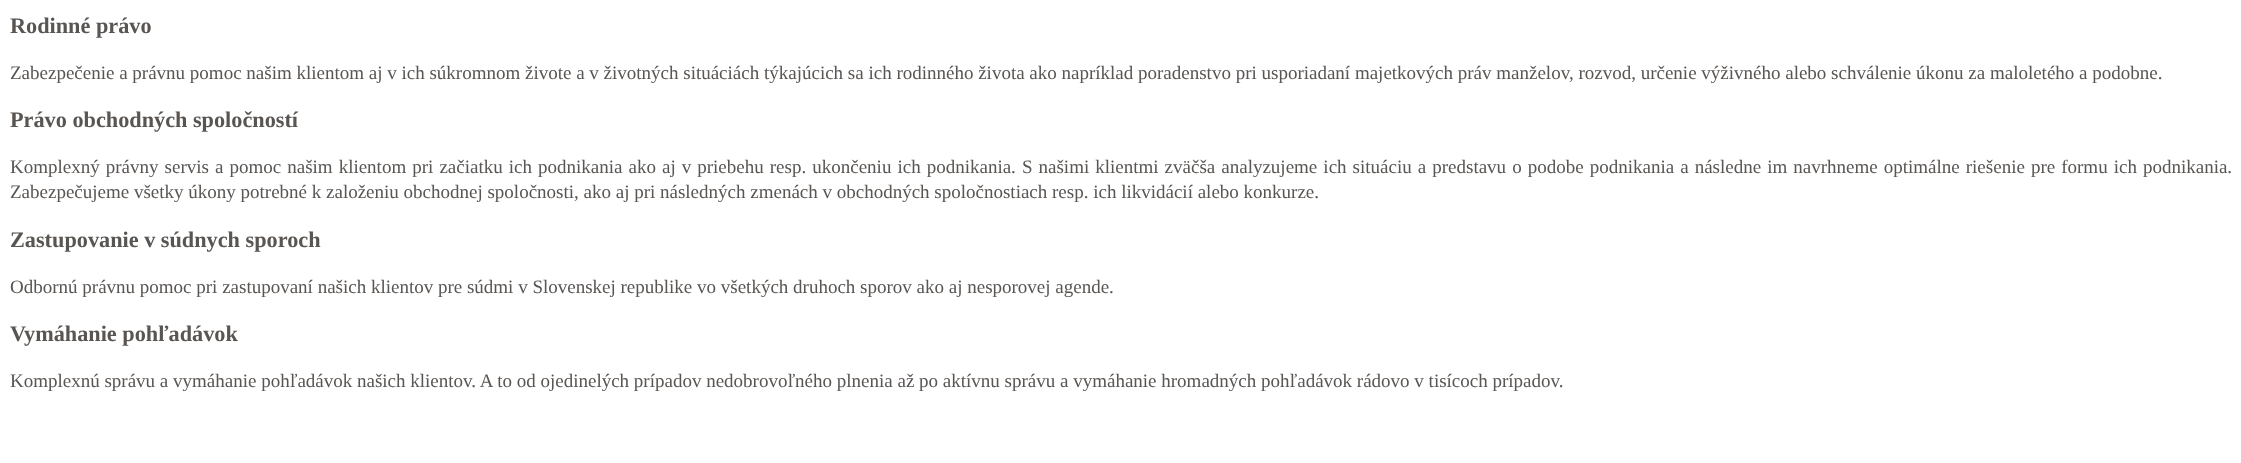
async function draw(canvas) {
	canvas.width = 2241;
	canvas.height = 463;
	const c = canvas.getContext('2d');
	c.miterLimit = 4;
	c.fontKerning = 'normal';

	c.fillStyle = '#fff';
	c.fillRect(0, 0, 2241, 463);
	c.font = 'bold 22.25px Liberation Serif';
	c.fillStyle = '#595552';
	c.fillText('Rodinné právo', 10, 33);
	c.font = '19px Liberation Serif';
	c.fillText('Zabezpečenie a právnu pomoc našim klientom aj v ich súkromnom živote a v životných situáciách týkajúcich sa ich rodinného života ako napríklad poradenstvo pri usporiadaní majetkových práv manželov, rozvod, určenie výživného alebo schválenie úkonu za maloletého a podobne.', 10, 79);
	c.font = 'bold 22.25px Liberation Serif';
	c.fillText('Právo obchodných spoločností', 10, 127);
	c.wordSpacing = '1.3px';
	c.font = '19px Liberation Serif';
	c.fillText('Komplexný právny servis a pomoc našim klientom pri začiatku ich podnikania ako aj v priebehu resp. ukončeniu ich podnikania. S našimi klientmi zväčša analyzujeme ich situáciu a predstavu o podobe podnikania a následne im navrhneme optimálne riešenie pre formu ich podnikania.', 10, 173);
	c.wordSpacing = '0px';
	c.fillText('Zabezpečujeme všetky úkony potrebné k založeniu obchodnej spoločnosti, ako aj pri následných zmenách v obchodných spoločnostiach resp. ich likvidácií alebo konkurze.', 10, 198);
	c.font = 'bold 22.25px Liberation Serif';
	c.fillText('Zastupovanie v súdnych sporoch', 10, 247);
	c.font = '19px Liberation Serif';
	c.fillText('Odbornú právnu pomoc pri zastupovaní našich klientov pre súdmi v Slovenskej republike vo všetkých druhoch sporov ako aj nesporovej agende.', 10, 293);
	c.font = 'bold 22.25px Liberation Serif';
	c.fillText('Vymáhanie pohľadávok', 10, 341);
	c.font = '19px Liberation Serif';
	c.fillText('Komplexnú správu a vymáhanie pohľadávok našich klientov. A to od ojedinelých prípadov nedobrovoľného plnenia až po aktívnu správu a vymáhanie hromadných pohľadávok rádovo v tisícoch prípadov.', 10, 387);
}

draw(document.querySelector('canvas'));
